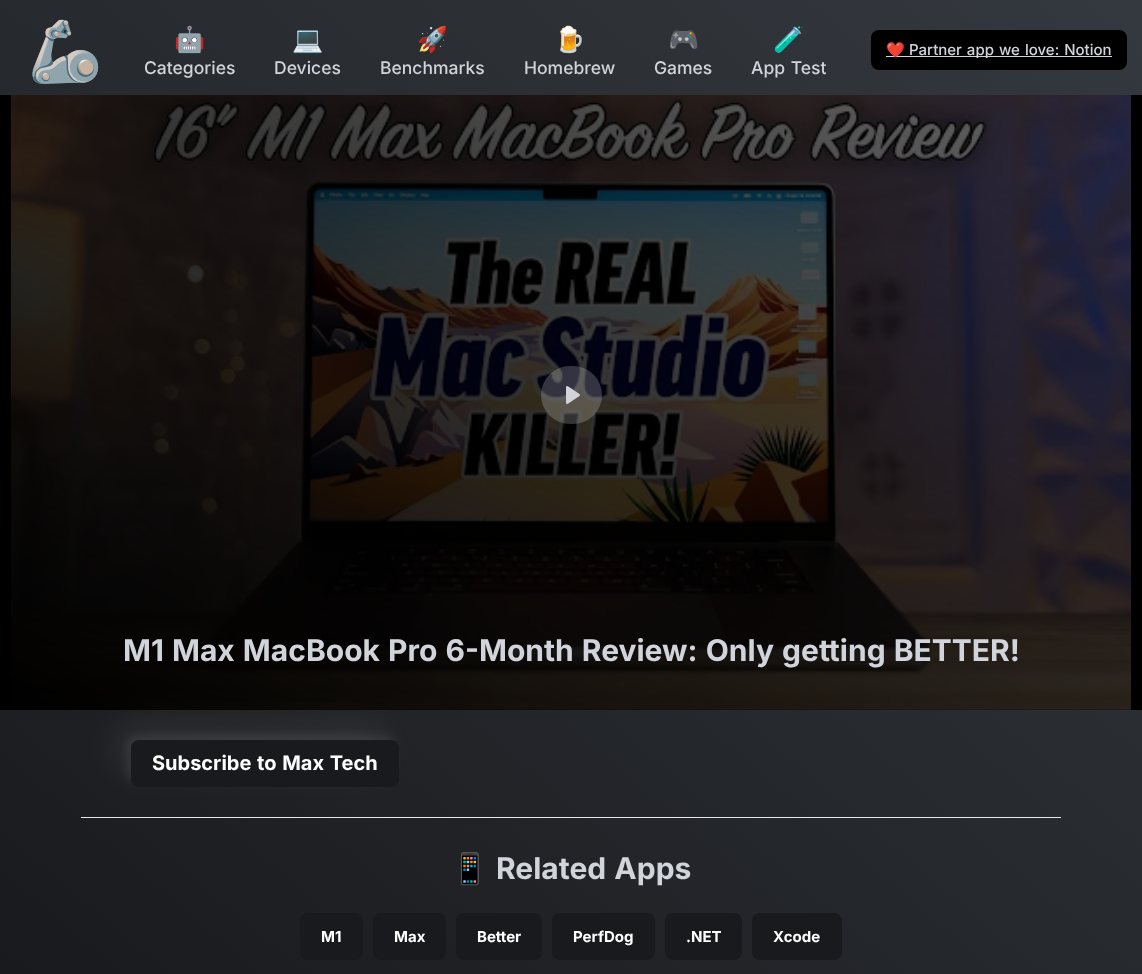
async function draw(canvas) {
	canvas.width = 1142;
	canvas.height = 974;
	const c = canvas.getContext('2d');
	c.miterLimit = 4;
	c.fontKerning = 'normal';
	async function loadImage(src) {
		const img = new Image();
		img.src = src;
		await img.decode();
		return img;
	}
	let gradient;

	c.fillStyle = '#fff';
	c.fillRect(0, 0, 1142, 974);
	gradient = c.createLinearGradient(1052, -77, 90, 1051);
	gradient.addColorStop(0, '#34393f');
	gradient.addColorStop(1, '#191a1d');
	c.fillStyle = gradient;
	c.fillRect(0, 710, 1142, 264);
	c.fillRect(0, 0, 1142, 95);
	c.font = '60px Noto Color Emoji';
	c.fillStyle = '#d1d5db';
	c.fillText('🦾', 28, 72);
	c.font = '25px Noto Color Emoji';
	c.fillText('🤖', 174, 48);
	c.font = '500 17.5px Inter';
	c.fillText('Categories', 144, 74);
	c.font = '25px Noto Color Emoji';
	c.fillText('💻', 292, 48);
	c.font = '500 17.5px Inter';
	c.fillText('Devices', 274, 74);
	c.font = '25px Noto Color Emoji';
	c.fillText('🚀', 417, 48);
	c.font = '500 17.5px Inter';
	c.fillText('Benchmarks', 380, 74);
	c.font = '25px Noto Color Emoji';
	c.fillText('🍺', 554, 48);
	c.font = '500 17.5px Inter';
	c.fillText('Homebrew', 524, 74);
	c.font = '25px Noto Color Emoji';
	c.fillText('🎮', 668, 48);
	c.font = '500 17.5px Inter';
	c.fillText('Games', 654, 74);
	c.font = '25px Noto Color Emoji';
	c.fillText('🧪', 773, 48);
	c.wordSpacing = '1px';
	c.font = '500 17.5px Inter';
	c.fillText('App Test', 751, 74);
	c.fillStyle = '#000';
	c.beginPath();
	c.roundRect(871, 30, 256, 40, 8);
	c.fill();
	c.fillStyle = '#d1d5db';
	c.fillRect(886, 56, 226, 1);
	c.wordSpacing = '0px';
	c.font = '15px Noto Color Emoji';
	c.fillText('❤️', 886, 55);
	c.wordSpacing = '1px';
	c.font = '500 15px Inter';
	c.fillText('Partner app we love: Notion', 909, 55);
	c.fillStyle = '#000';
	c.fillRect(0, 95, 1142, 615);
	c.drawImage(await loadImage('img1.png'), 11, 95, 1120, 615);
	c.fillStyle = '#ffffff33';
	c.beginPath();
	c.roundRect(541, 366, 61, 58, 29);
	c.fill();
	c.drawImage(await loadImage('img2.png'), 566, 386, 14, 18);
	c.font = 'bold 30px Inter';
	c.fillStyle = '#d1d5db';
	c.fillText('M1 Max MacBook Pro 6-Month Review: Only getting BETTER!', 123, 661);
	c.fillStyle = '#e5e7eb';
	c.fillRect(81, 817, 980, 1);
	c.fillStyle = '#ffffff12';
	c.filter = 'blur(17.5px)';
	c.beginPath();
	c.roundRect(116, 725, 268, 47, 8);
	c.fill();
	c.filter = 'none';
	c.filter = 'blur(5px)';
	c.beginPath();
	c.roundRect(126, 735, 268, 47, 8);
	c.fill();
	c.filter = 'none';
	c.fillStyle = '#191a1d';
	c.beginPath();
	c.roundRect(131, 740, 268, 47, 8);
	c.fill();
	c.font = 'bold 20px Inter';
	c.fillStyle = '#fff';
	c.fillText('Subscribe to Max Tech', 152, 770);
	c.wordSpacing = '0px';
	c.font = 'bold 30px Noto Color Emoji';
	c.fillStyle = '#d1d5db';
	c.fillText('📱', 451, 879);
	c.wordSpacing = '1px';
	c.font = 'bold 30px Inter';
	c.fillText('Related Apps', 496, 879);
	c.fillStyle = '#191a1d';
	c.beginPath();
	c.roundRect(300, 913, 63, 47, 8);
	c.fill();
	c.wordSpacing = '0px';
	c.font = 'bold 15px Inter';
	c.fillStyle = '#fff';
	c.fillText('M1', 321, 942);
	c.fillStyle = '#191a1d';
	c.beginPath();
	c.roundRect(373, 913, 73, 47, 8);
	c.fill();
	c.fillStyle = '#fff';
	c.fillText('Max', 394, 942);
	c.fillStyle = '#191a1d';
	c.beginPath();
	c.roundRect(456, 913, 86, 47, 8);
	c.fill();
	c.fillStyle = '#fff';
	c.fillText('Better', 477, 942);
	c.fillStyle = '#191a1d';
	c.beginPath();
	c.roundRect(552, 913, 103, 47, 8);
	c.fill();
	c.fillStyle = '#fff';
	c.fillText('PerfDog', 573, 942);
	c.fillStyle = '#191a1d';
	c.beginPath();
	c.roundRect(665, 913, 77, 47, 8);
	c.fill();
	c.fillStyle = '#fff';
	c.fillText('.NET', 686, 942);
	c.fillStyle = '#191a1d';
	c.beginPath();
	c.roundRect(752, 913, 90, 47, 8);
	c.fill();
	c.fillStyle = '#fff';
	c.fillText('Xcode', 773, 942);
}

draw(document.querySelector('canvas'));
